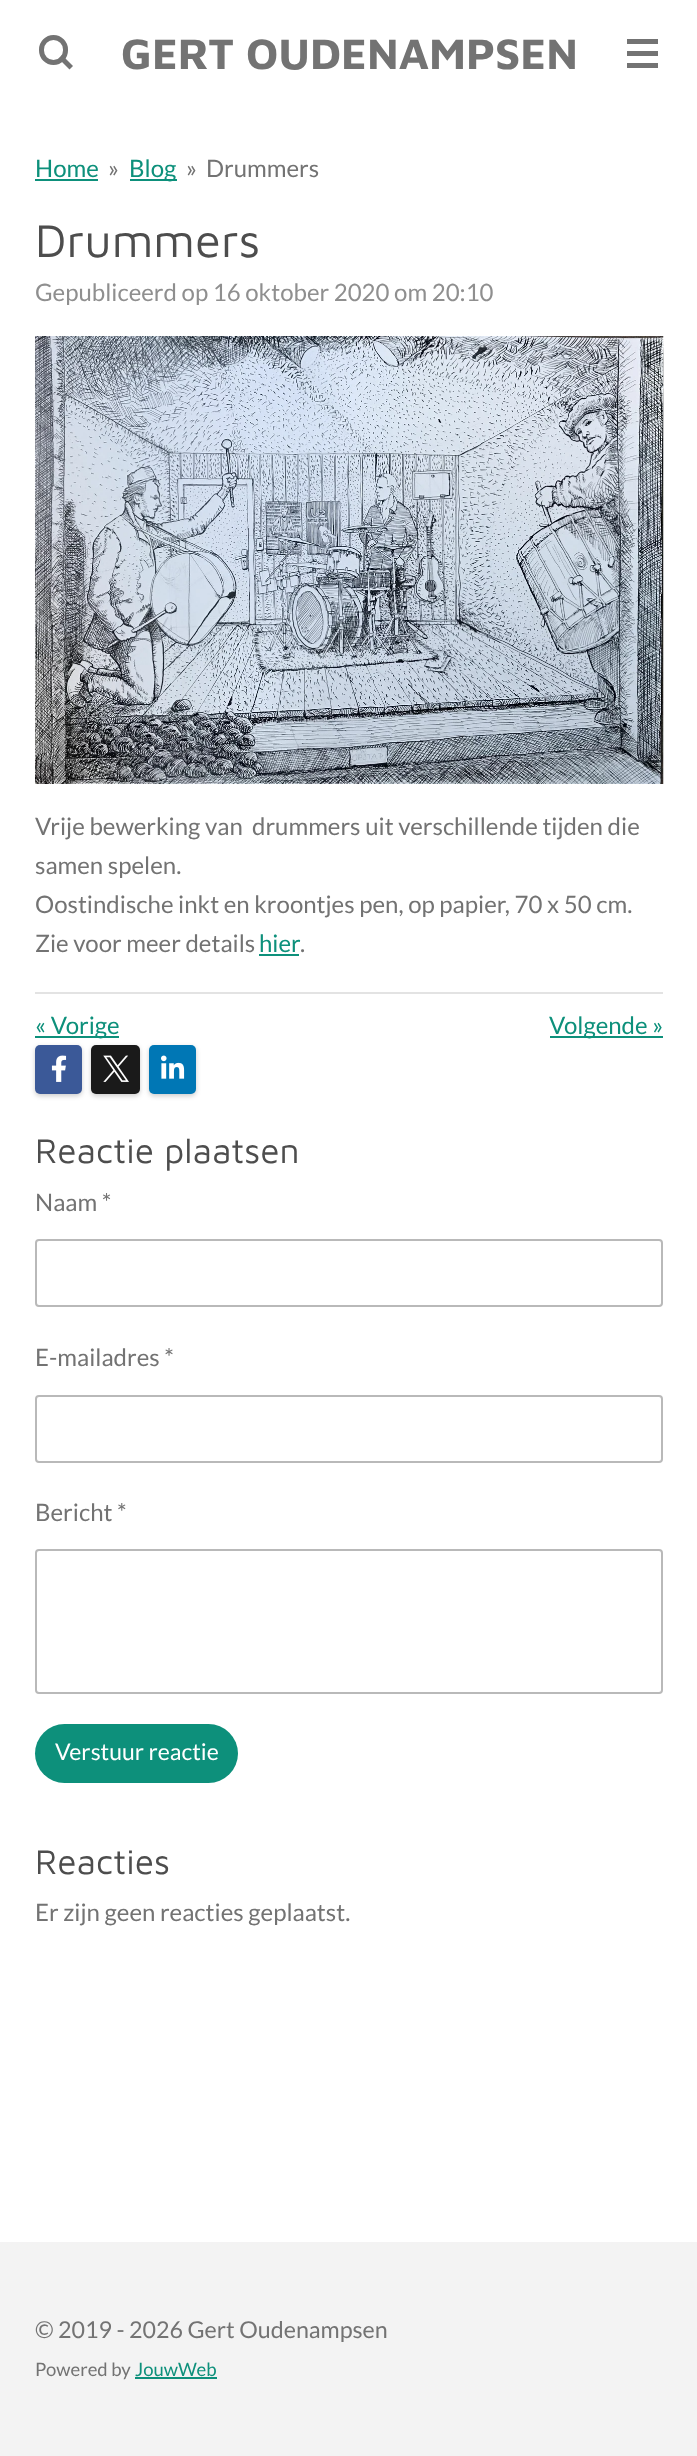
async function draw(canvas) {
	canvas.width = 697;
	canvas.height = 2456;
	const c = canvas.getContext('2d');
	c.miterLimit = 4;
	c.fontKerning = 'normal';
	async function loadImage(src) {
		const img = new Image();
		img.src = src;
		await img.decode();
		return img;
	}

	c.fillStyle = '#fff';
	c.fillRect(0, 0, 697, 2456);
	c.beginPath();
	c.roundRect(41.5, 37.5, 24, 25, 12);
	c.strokeStyle = '#737373';
	c.lineWidth = 5;
	c.stroke();
	c.fillStyle = '#737373';
	c.beginPath();
	c.moveTo(62, 55);
	c.lineTo(73, 66);
	c.lineTo(69.5, 69.5);
	c.lineTo(58.5, 58.5);
	c.closePath();
	c.fill();
	c.font = 'bold 43.75px Maven Pro';
	c.fillText('GERT OUDENAMPSEN', 121, 69);
	for (const [x, y, w, h, color] of [
		[627, 51, 31, 5, '#737373'],
		[627, 39, 31, 5, '#737373'],
		[627, 63, 31, 5, '#737373'],
	]) {
		c.fillStyle = color;
		c.fillRect(x, y, w, h);
	}
	c.font = '24px Lato';
	c.fillStyle = '#0d907b';
	c.fillText('Home', 35, 177);
	c.fillRect(35, 179, 63, 2);
	c.fillStyle = '#737373';
	c.fillText('»', 108, 177);
	c.fillStyle = '#0d907b';
	c.fillRect(130, 179, 47, 2);
	c.fillText('Blog', 129, 177);
	c.fillStyle = '#737373';
	c.fillText('»', 186, 177);
	c.fillText('Drummers', 206, 177);
	c.font = '47.25px Maven Pro';
	c.fillStyle = '#4d4d4d';
	c.fillText('Drummers', 35, 257);
	c.font = '24px Lato';
	c.fillStyle = '#8f8f8f';
	c.fillText('Gepubliceerd op 16 oktober 2020 om 20:10', 35, 301);
	c.drawImage(await loadImage('img1.png'), 35, 336, 629, 448);
	c.fillStyle = '#737373';
	for (const [text, x, y] of [
		['Vrije bewerking van  drummers uit verschillende tijden die', 35, 835],
		['samen spelen.', 35, 874],
		['Oostindische inkt en kroontjes pen, op papier, 70 x 50 cm.', 35, 913],
		['Zie voor meer details', 35, 952],
	]) {
		c.fillText(text, x, y);
	}
	c.fillStyle = '#0d907b';
	c.fillText('hier', 259, 952);
	c.fillStyle = '#737373';
	c.fillText('.', 300, 952);
	for (const [x, y, w, h, color] of [
		[259, 954, 40, 2, '#0d907b'],
		[35, 992, 628, 2, '#e3e3e3'],
		[35, 1036, 84, 2, '#0d907b'],
	]) {
		c.fillStyle = color;
		c.fillRect(x, y, w, h);
	}
	c.fillText('« Vorige', 35, 1034);
	c.fillRect(550, 1036, 113, 2);
	c.fillText('Volgende »', 549, 1034);
	c.fillStyle = '#00000033';
	c.filter = 'blur(2.5px)';
	c.beginPath();
	c.roundRect(35, 1047, 47, 49, 5);
	c.fill();
	c.filter = 'none';
	c.fillStyle = '#3b5998';
	c.beginPath();
	c.roundRect(35, 1045, 47, 49, 5);
	c.fill();
	c.drawImage(await loadImage('img2.png'), 51, 1055, 16, 27);
	c.fillStyle = '#00000033';
	c.filter = 'blur(2.5px)';
	c.beginPath();
	c.roundRect(91, 1047, 49, 49, 5);
	c.fill();
	c.filter = 'none';
	c.fillStyle = '#1a1a1a';
	c.beginPath();
	c.roundRect(91, 1045, 49, 49, 5);
	c.fill();
	c.drawImage(await loadImage('img3.png'), 103, 1055, 26, 27);
	c.fillStyle = '#00000033';
	c.filter = 'blur(2.5px)';
	c.beginPath();
	c.roundRect(149, 1047, 47, 49, 5);
	c.fill();
	c.filter = 'none';
	c.fillStyle = '#0077b5';
	c.beginPath();
	c.roundRect(149, 1045, 47, 49, 5);
	c.fill();
	c.drawImage(await loadImage('img4.png'), 161, 1055, 24, 24);
	c.font = '35.25px Maven Pro';
	c.fillStyle = '#4d4d4d';
	c.fillText('Reactie plaatsen', 35, 1163);
	c.font = '24px Lato';
	c.fillStyle = '#737373';
	c.fillText('Naam *', 35, 1211);
	c.beginPath();
	c.roundRect(36, 1240, 626, 66, 3);
	c.strokeStyle = '#b9b9b9';
	c.lineWidth = 2;
	c.stroke();
	c.fillText('E-mailadres *', 35, 1366);
	c.beginPath();
	c.roundRect(36, 1396, 626, 66, 3);
	c.stroke();
	c.fillText('Bericht *', 35, 1521);
	c.beginPath();
	c.roundRect(36, 1550, 626, 143, 3);
	c.stroke();
	c.fillStyle = '#0d907b';
	c.beginPath();
	c.roundRect(35, 1724, 203, 59, 29.5);
	c.fill();
	c.font = '23px Lato';
	c.fillStyle = '#fff';
	c.fillText('Verstuur reactie', 55, 1760);
	c.font = '35.25px Maven Pro';
	c.fillStyle = '#4d4d4d';
	c.fillText('Reacties', 35, 1874);
	c.font = '24px Lato';
	c.fillStyle = '#737373';
	c.fillText('Er zijn geen reacties geplaatst.', 35, 1921);
	c.fillStyle = '#f3f3f3';
	c.fillRect(0, 2242, 697, 214);
	c.font = '23.25px Lato';
	c.fillStyle = '#737373';
	c.fillText('© 2019 - 2026 Gert Oudenampsen', 35, 2338);
	c.font = '18.5px Lato';
	c.fillText('Powered by', 35, 2376);
	c.fillStyle = '#0d907b';
	c.fillRect(135, 2377, 82, 2);
	c.fillText('JouwWeb', 135, 2376);
}

draw(document.querySelector('canvas'));
